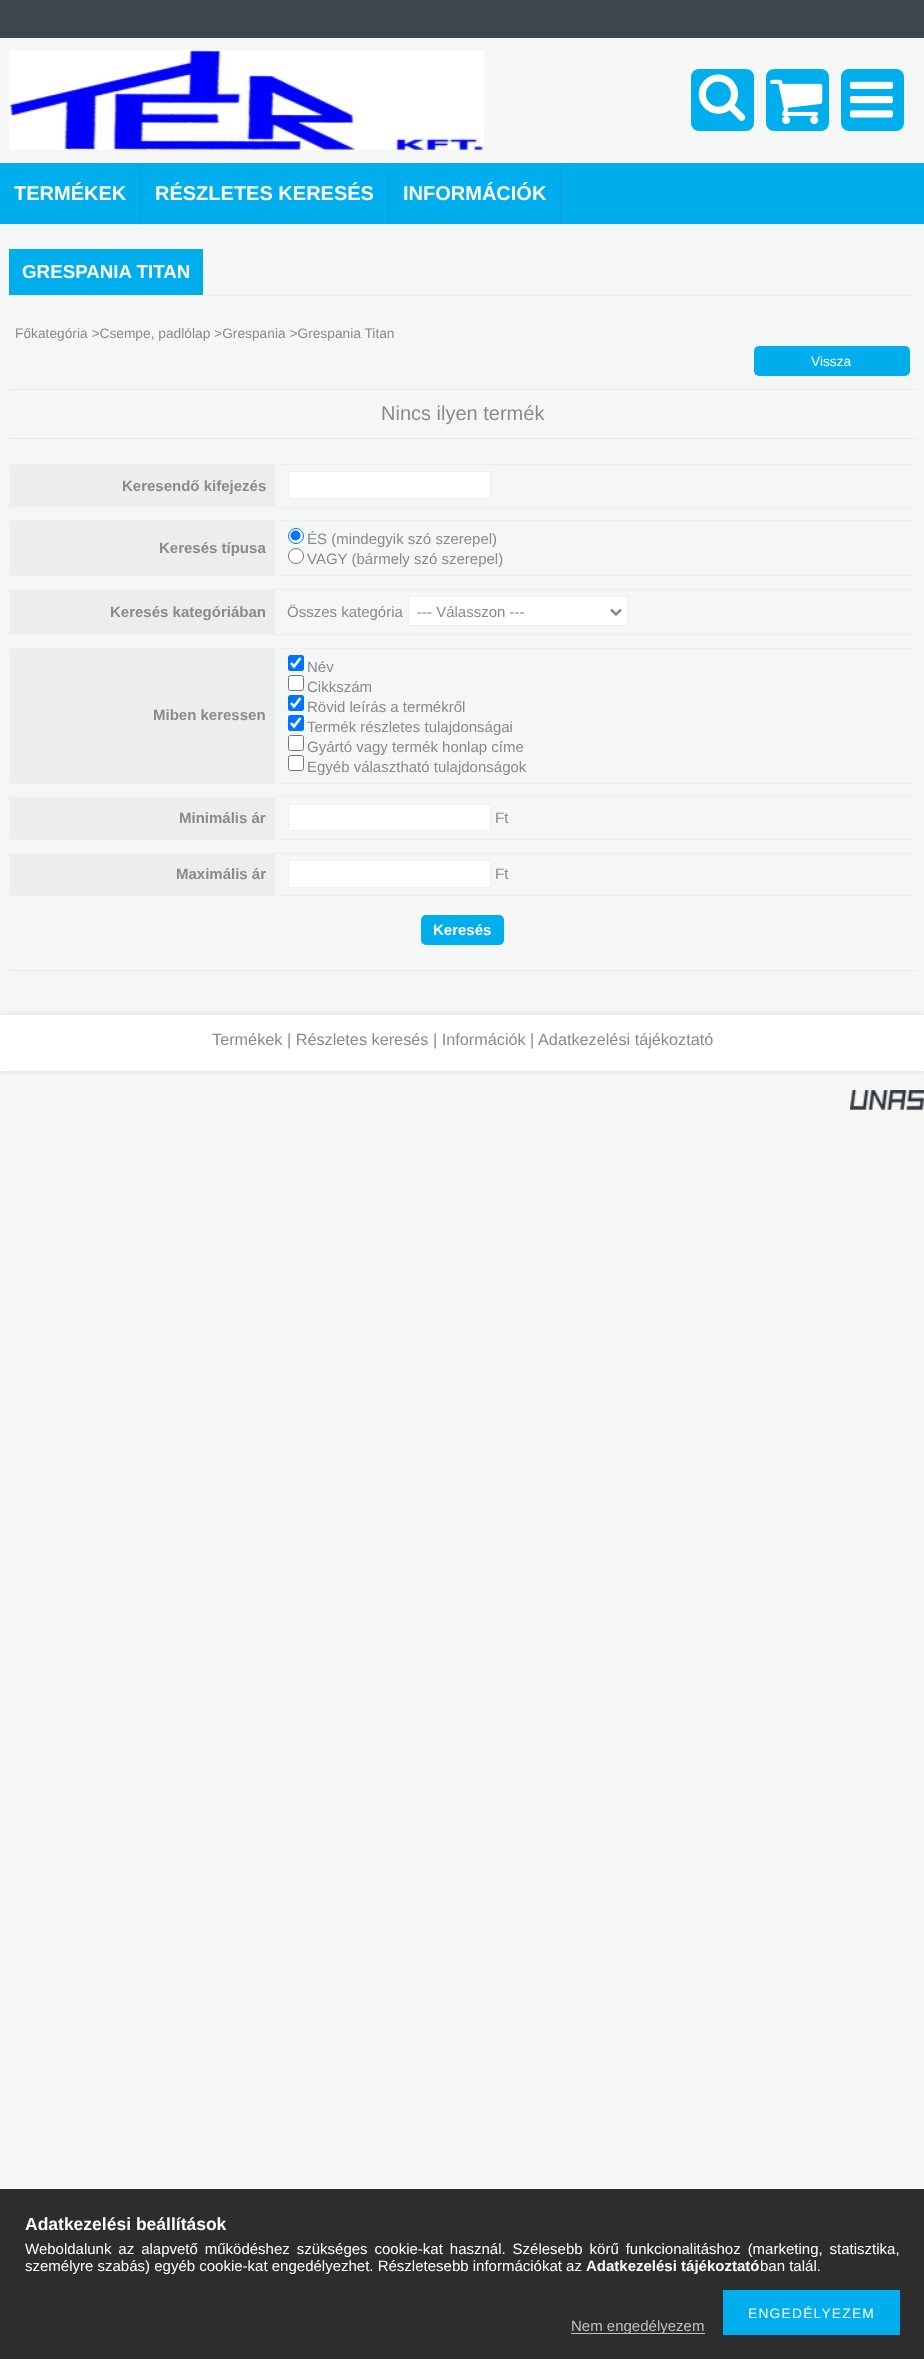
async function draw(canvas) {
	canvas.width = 924;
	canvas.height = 2359;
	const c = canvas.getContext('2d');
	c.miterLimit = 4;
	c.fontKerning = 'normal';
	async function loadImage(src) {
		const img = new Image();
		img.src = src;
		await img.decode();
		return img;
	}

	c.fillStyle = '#f5f6f6';
	c.fillRect(0, 0, 924, 2359);
	c.fillStyle = '#3e454c';
	c.fillRect(0, 0, 924, 38);
	c.drawImage(await loadImage('img1.png'), 9, 50, 475, 100);
	c.fillStyle = '#00aeed';
	c.beginPath();
	c.roundRect(691, 69, 63, 62, 8);
	c.fill();
	c.drawImage(await loadImage('img2.png'), 698, 74, 48, 47);
	c.beginPath();
	c.roundRect(766, 69, 63, 62, 8);
	c.fill();
	c.drawImage(await loadImage('img3.png'), 770, 79, 53, 45);
	c.beginPath();
	c.roundRect(841, 69, 63, 62, 8);
	c.fill();
	c.drawImage(await loadImage('img4.png'), 850, 81, 43, 37);
	c.fillRect(0, 163, 924, 61);
	c.fillStyle = '#00000012';
	c.fillRect(140, 163, 1, 61);
	c.font = 'bold 20px Liberation Sans';
	c.fillStyle = '#fff';
	c.fillText('TERMÉKEK', 14, 200);
	c.fillStyle = '#00000012';
	c.fillRect(388, 163, 1, 61);
	c.fillStyle = '#fff';
	c.fillText('RÉSZLETES KERESÉS', 155, 200);
	c.fillStyle = '#00000012';
	c.fillRect(560, 163, 1, 61);
	c.fillStyle = '#fff';
	c.fillText('INFORMÁCIÓK', 403, 200);
	c.fillStyle = '#efefef';
	c.fillRect(9, 295, 907, 1);
	c.fillStyle = '#00aeed';
	c.fillRect(9, 249, 194, 46);
	c.font = 'bold 18.75px Liberation Sans';
	c.fillStyle = '#fff';
	c.fillText('GRESPANIA TITAN', 22, 278);
	c.font = '13.75px Liberation Sans';
	c.fillStyle = '#8b8a8a';
	c.fillText('Főkategória >Csempe, padlólap >Grespania >Grespania Titan', 15, 338);
	c.fillStyle = '#00aeed';
	c.beginPath();
	c.roundRect(754, 346, 156, 30, 5);
	c.fill();
	c.fillStyle = '#fff';
	c.fillText('Vissza', 811, 366);
	c.fillStyle = '#eceaea';
	c.fillRect(9, 389, 907, 1);
	c.font = '20px Liberation Sans';
	c.fillStyle = '#8b8a8a';
	c.fillText('Nincs ilyen termék', 381, 420);
	c.fillStyle = '#eceaea';
	c.fillRect(9, 438, 907, 1);
	c.save();
	c.beginPath();
	c.rect(9, 451, 907, 507);
	c.clip();
	c.strokeStyle = '#efefef';
	c.strokeRect(9.5, 464.5, 909, 43);
	c.restore();
	c.fillStyle = '#ededed';
	c.fillRect(10, 465, 265, 41);
	c.font = 'bold 15px Liberation Sans';
	c.fillStyle = '#8b8a8a';
	c.fillText('Keresendő kifejezés', 122, 491);
	c.fillStyle = '#fff';
	c.beginPath();
	c.rect(288.5, 471.5, 202, 27);
	c.fill();
	c.strokeStyle = '#efefef';
	c.stroke();
	c.save();
	c.beginPath();
	c.rect(9, 451, 907, 507);
	c.clip();
	c.strokeRect(9.5, 520.5, 909, 55);
	c.restore();
	c.fillStyle = '#ededed';
	c.fillRect(10, 521, 265, 54);
	c.fillStyle = '#8b8a8a';
	c.fillText('Keresés típusa', 159, 553);
	c.fillStyle = '#fff';
	c.beginPath();
	c.arc(296, 536, 7.5, 0, 2 * Math.PI);
	c.fill();
	c.strokeStyle = '#0075ff';
	c.stroke();
	c.fillStyle = '#0075ff';
	c.beginPath();
	c.arc(295.5, 535.5, 5, 0, 2 * Math.PI);
	c.fill();
	c.font = '15px Liberation Sans';
	c.fillStyle = '#8b8a8a';
	c.fillText('ÉS (mindegyik szó szerepel)', 307, 544);
	c.fillStyle = '#fff';
	c.beginPath();
	c.arc(296, 556, 7.5, 0, 2 * Math.PI);
	c.fill();
	c.strokeStyle = '#767676';
	c.stroke();
	c.fillStyle = '#8b8a8a';
	c.fillText('VAGY (bármely szó szerepel)', 307, 564);
	c.save();
	c.beginPath();
	c.rect(9, 451, 907, 507);
	c.clip();
	c.strokeStyle = '#efefef';
	c.strokeRect(9.5, 589.5, 909, 45);
	c.restore();
	c.fillStyle = '#ededed';
	c.fillRect(10, 590, 265, 44);
	c.font = 'bold 15px Liberation Sans';
	c.fillStyle = '#8b8a8a';
	c.fillText('Keresés kategóriában', 110, 617);
	c.font = '15px Liberation Sans';
	c.fillText('Összes kategória', 287, 617);
	c.fillStyle = '#fff';
	c.beginPath();
	c.rect(408.5, 596.5, 219, 29);
	c.fill();
	c.strokeStyle = '#efefef';
	c.stroke();
	c.beginPath();
	c.moveTo(611, 609.5);
	c.lineTo(616, 614.5);
	c.lineTo(621, 609.5);
	c.strokeStyle = '#8b8a8a';
	c.lineWidth = 2.5;
	c.stroke();
	c.fillStyle = '#8b8a8a';
	c.fillText('--- Válasszon ---', 417, 617);
	c.save();
	c.beginPath();
	c.rect(9, 451, 907, 507);
	c.clip();
	c.strokeStyle = '#efefef';
	c.lineWidth = 1;
	c.strokeRect(9.5, 648.5, 909, 135);
	c.restore();
	c.fillStyle = '#ededed';
	c.fillRect(10, 649, 265, 134);
	c.font = 'bold 15px Liberation Sans';
	c.fillStyle = '#8b8a8a';
	c.fillText('Miben keressen', 153, 720);
	c.fillStyle = '#0075ff';
	c.beginPath();
	c.roundRect(288, 655, 16, 16, 2.5);
	c.fill();
	c.beginPath();
	c.moveTo(291, 663);
	c.lineTo(294, 666.5);
	c.lineTo(300.5, 658);
	c.strokeStyle = '#fff';
	c.lineWidth = 2.6;
	c.stroke();
	c.font = '15px Liberation Sans';
	c.fillStyle = '#8b8a8a';
	c.fillText('Név', 307, 672);
	c.fillStyle = '#fff';
	c.beginPath();
	c.roundRect(288.5, 675.5, 15, 15, 2);
	c.fill();
	c.strokeStyle = '#767676';
	c.lineWidth = 1;
	c.stroke();
	c.fillStyle = '#8b8a8a';
	c.fillText('Cikkszám', 307, 692);
	c.fillStyle = '#0075ff';
	c.beginPath();
	c.roundRect(288, 695, 16, 16, 2.5);
	c.fill();
	c.beginPath();
	c.moveTo(291, 703);
	c.lineTo(294, 706.5);
	c.lineTo(300.5, 698);
	c.strokeStyle = '#fff';
	c.lineWidth = 2.6;
	c.stroke();
	c.fillStyle = '#8b8a8a';
	c.fillText('Rövid leírás a termékről', 307, 712);
	c.fillStyle = '#0075ff';
	c.beginPath();
	c.roundRect(288, 715, 16, 16, 2.5);
	c.fill();
	c.beginPath();
	c.moveTo(291, 723);
	c.lineTo(294, 726.5);
	c.lineTo(300.5, 718);
	c.stroke();
	c.fillStyle = '#8b8a8a';
	c.fillText('Termék részletes tulajdonságai', 307, 732);
	c.fillStyle = '#fff';
	c.beginPath();
	c.roundRect(288.5, 735.5, 15, 15, 2);
	c.fill();
	c.strokeStyle = '#767676';
	c.lineWidth = 1;
	c.stroke();
	c.fillStyle = '#8b8a8a';
	c.fillText('Gyártó vagy termék honlap címe', 307, 752);
	c.fillStyle = '#fff';
	c.beginPath();
	c.roundRect(288.5, 755.5, 15, 15, 2);
	c.fill();
	c.stroke();
	c.fillStyle = '#8b8a8a';
	c.fillText('Egyéb választható tulajdonságok', 307, 772);
	c.save();
	c.beginPath();
	c.rect(9, 451, 907, 507);
	c.clip();
	c.strokeStyle = '#efefef';
	c.strokeRect(9.5, 796.5, 909, 43);
	c.restore();
	c.fillStyle = '#ededed';
	c.fillRect(10, 798, 265, 41);
	c.font = 'bold 15px Liberation Sans';
	c.fillStyle = '#8b8a8a';
	c.fillText('Minimális ár', 179, 823);
	c.fillStyle = '#fff';
	c.beginPath();
	c.rect(288.5, 804.5, 202, 26);
	c.fill();
	c.strokeStyle = '#efefef';
	c.stroke();
	c.font = '15px Liberation Sans';
	c.fillStyle = '#8b8a8a';
	c.fillText('Ft', 495, 823);
	c.save();
	c.beginPath();
	c.rect(9, 451, 907, 507);
	c.clip();
	c.strokeRect(9.5, 853.5, 909, 42);
	c.restore();
	c.fillStyle = '#ededed';
	c.fillRect(10, 854, 265, 41);
	c.font = 'bold 15px Liberation Sans';
	c.fillStyle = '#8b8a8a';
	c.fillText('Maximális ár', 176, 879);
	c.fillStyle = '#fff';
	c.beginPath();
	c.rect(288.5, 860.5, 202, 27);
	c.fill();
	c.stroke();
	c.font = '15px Liberation Sans';
	c.fillStyle = '#8b8a8a';
	c.fillText('Ft', 495, 879);
	c.fillStyle = '#00aeed';
	c.beginPath();
	c.roundRect(421, 915, 83, 30, 5);
	c.fill();
	c.font = 'bold 15px Liberation Sans';
	c.fillStyle = '#fff';
	c.fillText('Keresés', 433, 935);
	c.fillStyle = '#eceaea';
	c.fillRect(9, 970, 907, 1);
	c.fillStyle = '#0000001a';
	c.filter = 'blur(3px)';
	c.beginPath();
	c.rect(0, 1015, 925, 56);
	c.fill();
	c.filter = 'none';
	c.fillStyle = '#fff';
	c.fillRect(0, 1015, 924, 56);
	c.font = '16.25px Liberation Sans';
	c.fillStyle = '#8b8a8a';
	for (const [text, x, y] of [
		['Termékek | Részletes keresés | Információk', 212, 1045],
		['|', 530, 1045],
		['Adatkezelési tájékoztató', 538, 1045],
	]) {
		c.fillText(text, x, y);
	}
	c.drawImage(await loadImage('img5.png'), 850, 1090, 74, 20);
	c.fillStyle = '#2d2d2d';
	c.fillRect(0, 2189, 924, 170);
	c.font = 'bold 17.5px Liberation Sans';
	c.fillStyle = '#fff';
	c.fillText('Adatkezelési beállítások', 25, 2230);
	c.wordSpacing = '2.75px';
	c.font = '15px Liberation Sans';
	c.fillText('Weboldalunk az alapvető működéshez szükséges cookie-kat használ. Szélesebb körű funkcionalitáshoz (marketing, statisztika,', 25, 2254);
	c.wordSpacing = '0px';
	c.fillText('személyre szabás) egyéb cookie-kat engedélyezhet. Részletesebb információkat az', 25, 2271);
	c.font = 'bold 15px Liberation Sans';
	c.fillText('Adatkezelési tájékoztató', 586, 2271);
	c.font = '15px Liberation Sans';
	c.fillText('ban talál.', 760, 2271);
	c.fillStyle = '#00aeed';
	c.fillRect(723, 2290, 177, 45);
	c.letterSpacing = '1.25px';
	c.font = '13.75px Liberation Sans';
	c.fillStyle = '#fff';
	c.fillText('ENGEDÉLYEZEM', 748, 2318);
	c.fillStyle = '#c0c0c0';
	c.fillRect(571, 2333, 134, 1);
	c.letterSpacing = '0px';
	c.font = '15px Liberation Sans';
	c.fillText('Nem engedélyezem', 571, 2331);
}

draw(document.querySelector('canvas'));
